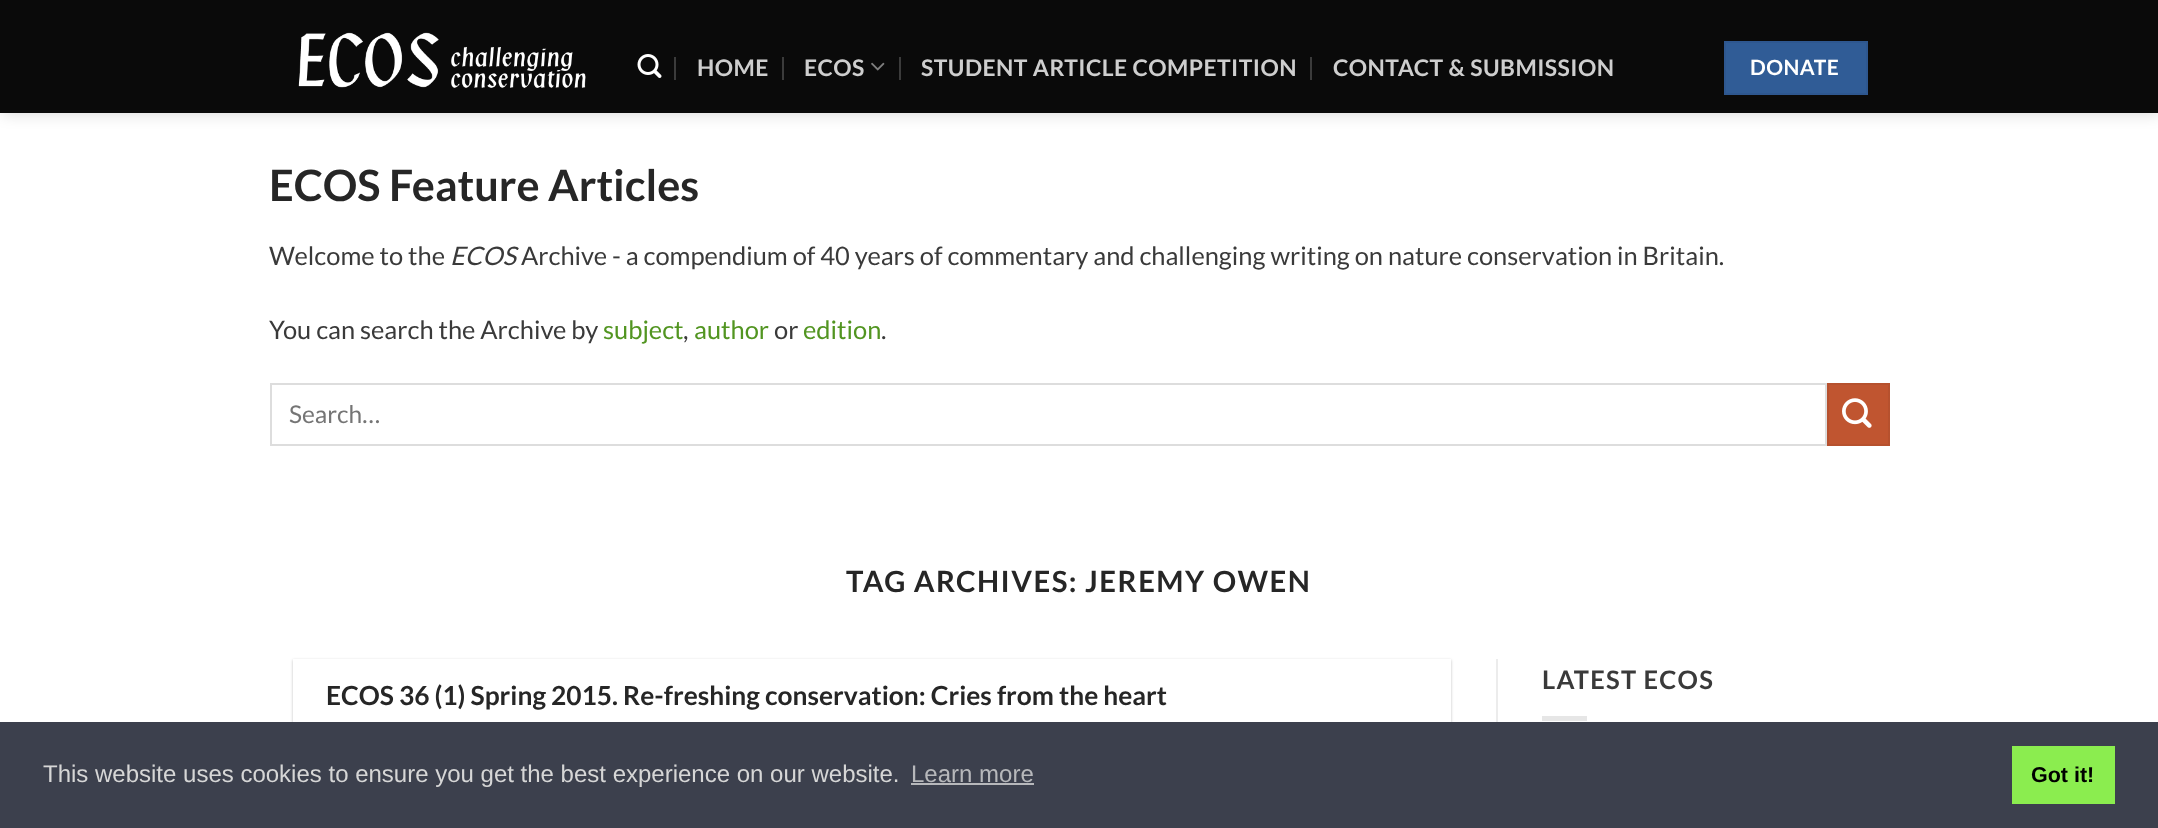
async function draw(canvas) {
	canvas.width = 2158;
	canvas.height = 828;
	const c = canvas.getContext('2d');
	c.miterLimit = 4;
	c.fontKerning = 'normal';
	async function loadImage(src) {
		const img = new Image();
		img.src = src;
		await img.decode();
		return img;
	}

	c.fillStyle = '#fff';
	c.fillRect(0, 0, 2158, 828);
	c.fillStyle = '#00000026';
	c.filter = 'blur(7.5px)';
	c.beginPath();
	c.rect(2, 2, 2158, 112);
	c.fill();
	c.filter = 'none';
	c.fillStyle = '#0a0a0a';
	c.fillRect(0, 0, 2158, 113);
	c.drawImage(await loadImage('img1.png'), 298, 32, 288, 56);
	c.drawImage(await loadImage('img2.png'), 637, 54, 25, 24);
	c.fillStyle = '#3b3b3b';
	c.fillRect(674, 57, 2, 23);
	c.letterSpacing = '0.45px';
	c.font = 'bold 22.9px Lato';
	c.fillStyle = '#cecece';
	c.fillText('HOME', 697, 76);
	c.fillStyle = '#3b3b3b';
	c.fillRect(782, 57, 2, 23);
	c.fillStyle = '#cecece';
	c.fillText('ECOS', 804, 76);
	c.drawImage(await loadImage('img3.png'), 871, 62, 14, 9);
	c.fillStyle = '#3b3b3b';
	c.fillRect(899, 57, 2, 23);
	c.fillStyle = '#cecece';
	c.fillText('STUDENT ARTICLE COMPETITION', 921, 76);
	c.fillStyle = '#3b3b3b';
	c.fillRect(1310, 57, 2, 23);
	c.fillStyle = '#cecece';
	c.fillText('CONTACT & SUBMISSION', 1333, 76);
	c.fillStyle = '#305c96';
	c.beginPath();
	c.rect(1725, 42, 142, 52);
	c.fill();
	c.strokeStyle = '#2e578f';
	c.lineWidth = 2;
	c.stroke();
	c.letterSpacing = '0.5px';
	c.font = 'bold 21px Lato';
	c.fillStyle = '#fff';
	c.fillText('DONATE', 1750, 75);
	c.letterSpacing = '0px';
	c.font = 'bold 43.25px Lato';
	c.fillStyle = '#262626';
	c.fillText('ECOS Feature Articles', 269, 201);
	c.font = '25.45px Lato';
	c.fillStyle = '#3a3a3a';
	c.fillText('Welcome to the', 269, 265);
	c.font = 'italic 25.45px Lato';
	c.fillText('ECOS', 450, 265);
	c.font = '25.45px Lato';
	c.fillText('Archive - a compendium of 40 years of commentary and challenging writing on nature conservation in Britain.', 521, 265);
	c.fillText('You can search the Archive by', 269, 339);
	c.fillStyle = '#529521';
	c.fillText('subject', 603, 339);
	c.fillStyle = '#3a3a3a';
	c.fillText(',', 683, 339);
	c.fillStyle = '#529521';
	c.fillText('author', 694, 339);
	c.fillStyle = '#3a3a3a';
	c.fillText('or', 774, 339);
	c.fillStyle = '#529521';
	c.fillText('edition', 803, 339);
	c.fillStyle = '#3a3a3a';
	c.fillText('.', 881, 339);
	c.strokeStyle = '#ddd';
	c.strokeRect(271, 384, 1555, 61);
	c.font = '24.5px Lato';
	c.fillStyle = '#757575';
	c.fillText('Search…', 289, 423);
	c.fillStyle = '#c05530';
	c.beginPath();
	c.rect(1828, 384, 61, 61);
	c.fill();
	c.strokeStyle = '#b6512e';
	c.stroke();
	c.drawImage(await loadImage('img4.png'), 1842, 398, 30, 30);
	c.letterSpacing = '1.45px';
	c.font = 'bold 29.25px Lato';
	c.fillStyle = '#262626';
	c.fillText('TAG ARCHIVES: JEREMY OWEN', 846, 592);
	c.fillStyle = '#ececec';
	c.fillRect(1496, 659, 2, 63);
	c.letterSpacing = '1.25px';
	c.font = 'bold 25.45px Lato';
	c.fillStyle = '#3a3a3a';
	c.fillText('LATEST ECOS', 1542, 689);
	c.fillStyle = '#e6e6e6';
	c.fillRect(1542, 716, 45, 5);
	c.fillStyle = '#0000003d';
	c.filter = 'blur(1.5px)';
	c.beginPath();
	c.rect(293, 660, 1158, 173);
	c.fill();
	c.filter = 'none';
	c.fillStyle = '#fff';
	c.fillRect(293, 659, 1158, 63);
	c.letterSpacing = '0px';
	c.font = 'bold 26.3px Lato';
	c.fillStyle = '#262626';
	c.fillText('ECOS 36 (1) Spring 2015. Re-freshing conservation: Cries from the heart', 326, 705);
	c.fillStyle = '#3c404d';
	c.fillRect(0, 722, 2158, 106);
	c.font = '24px Liberation Sans';
	c.fillStyle = '#d6d6d6';
	c.fillText('This website uses cookies to ensure you get the best experience on our website.', 43, 782);
	c.fillStyle = '#b7b8bb';
	c.fillText('Learn more', 911, 782);
	c.fillRect(911, 783, 123, 2);
	c.fillStyle = '#8bed4f';
	c.fillRect(2012, 746, 103, 58);
	c.font = 'bold 21.5px Liberation Sans';
	c.fillStyle = '#000';
	c.fillText('Got it!', 2031, 782);
}

draw(document.querySelector('canvas'));
